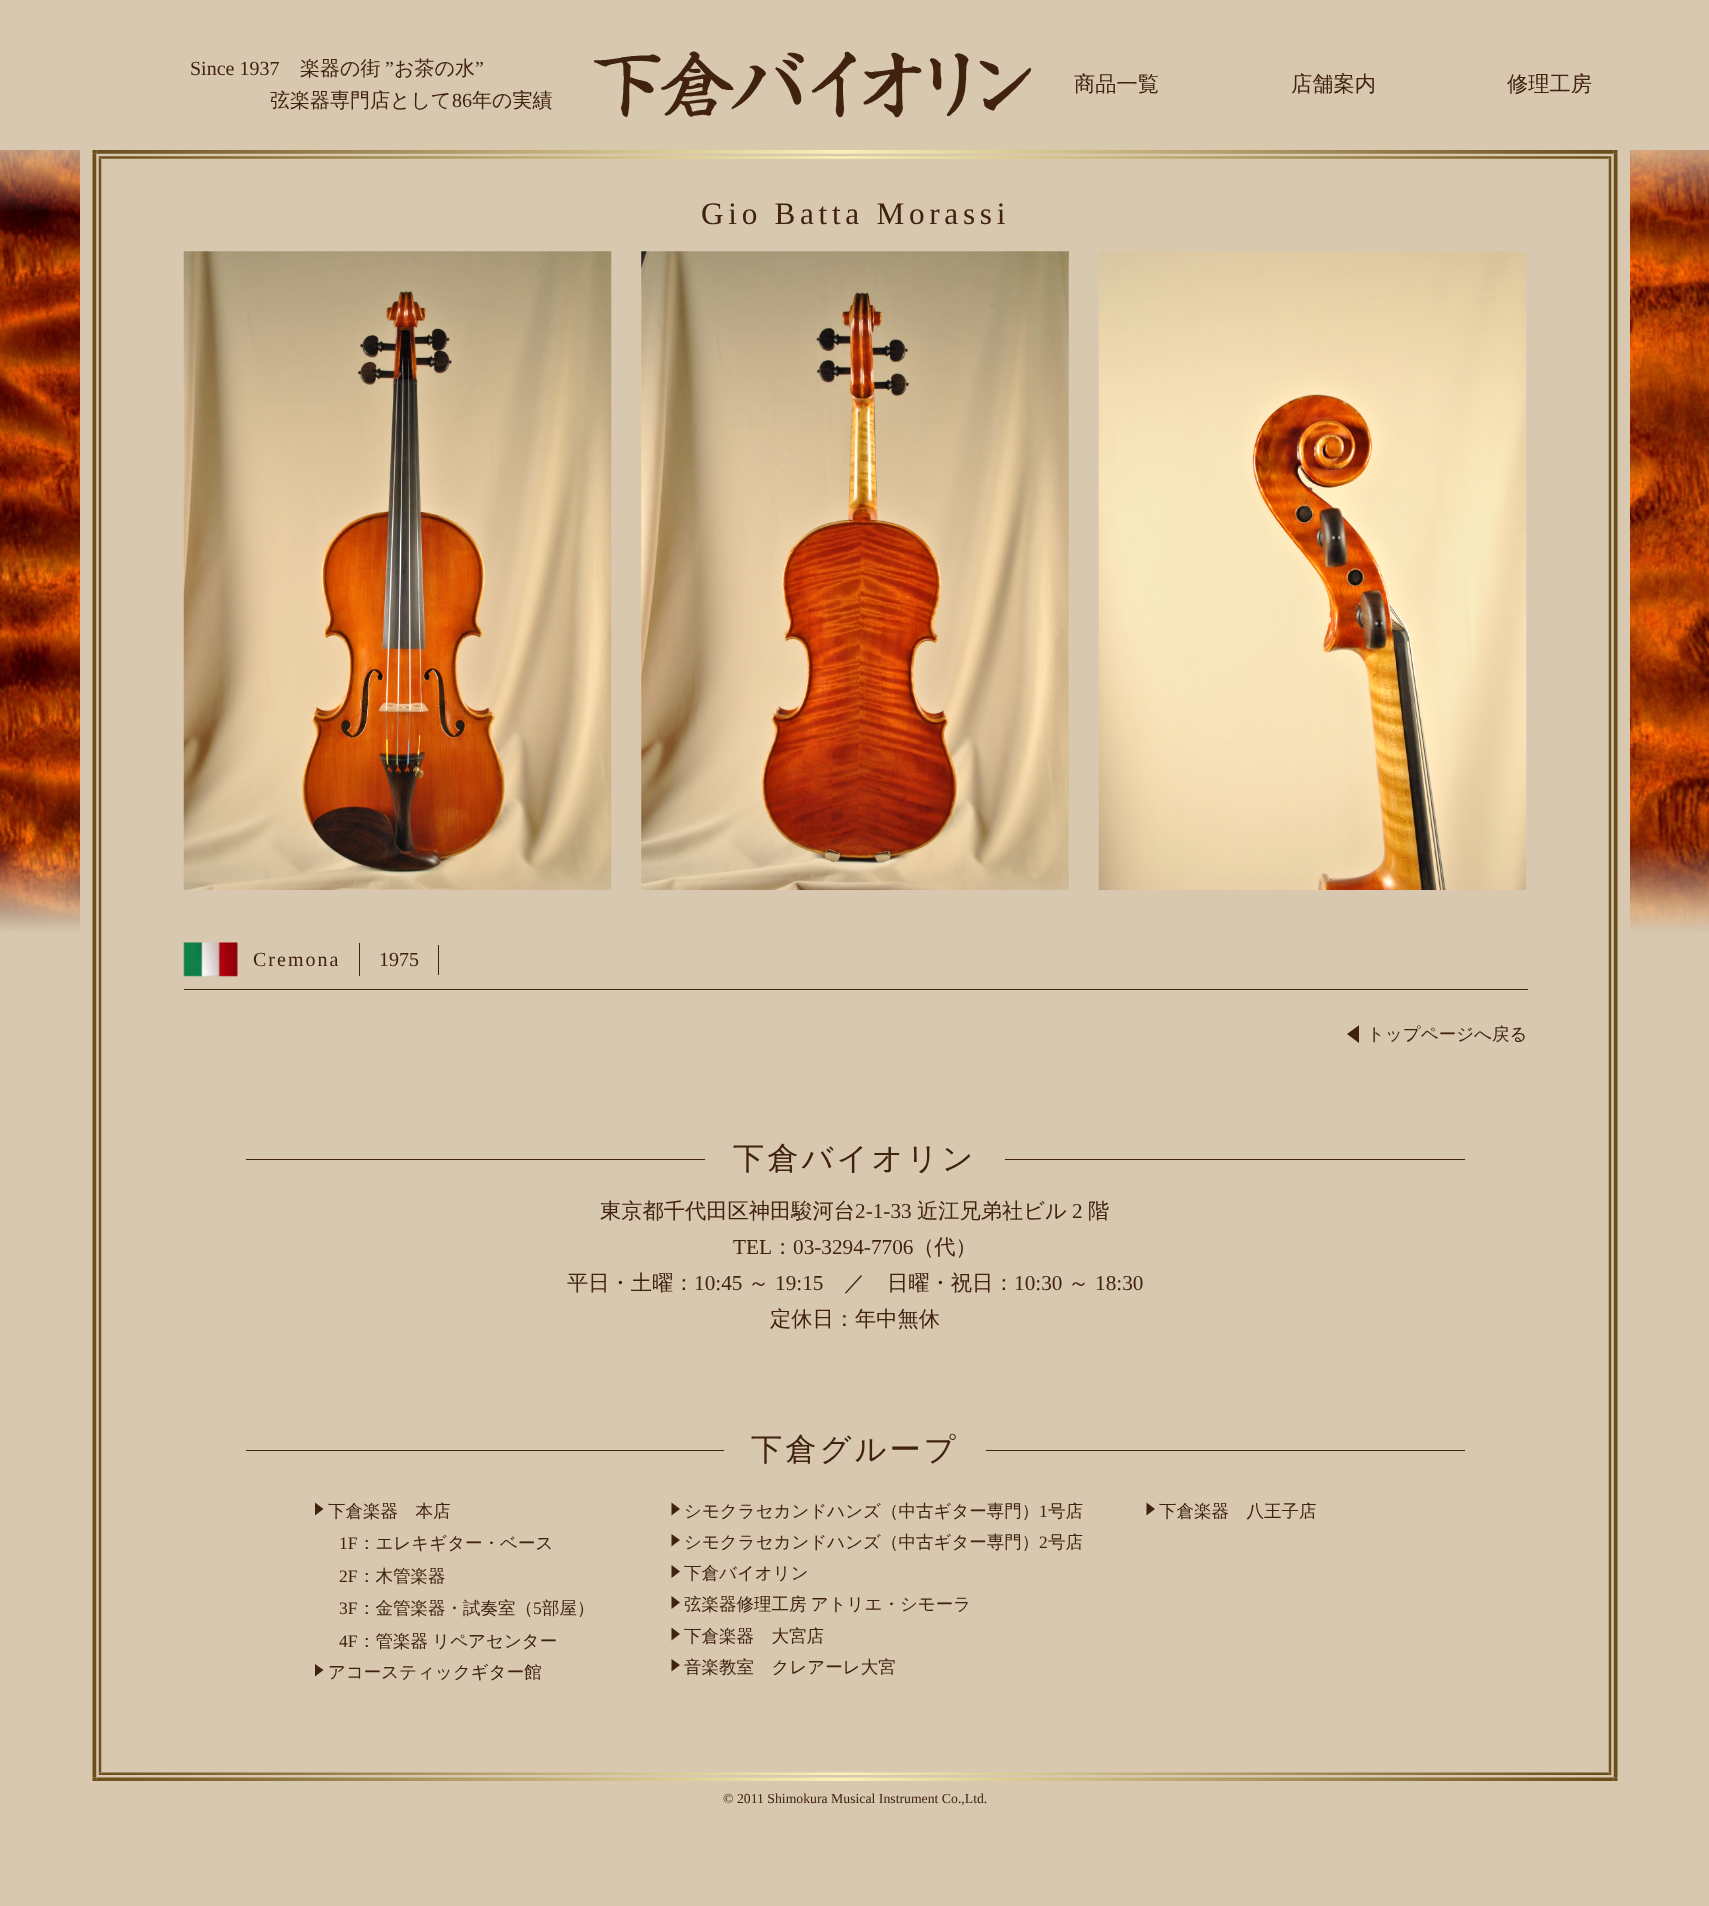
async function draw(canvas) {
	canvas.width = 1709;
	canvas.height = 1906;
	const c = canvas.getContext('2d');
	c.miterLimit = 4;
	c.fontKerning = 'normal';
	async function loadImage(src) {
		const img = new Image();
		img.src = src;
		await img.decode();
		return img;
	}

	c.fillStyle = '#d7c8af';
	c.fillRect(0, 0, 1709, 1906);
	c.font = '20px Liberation Serif';
	c.fillStyle = '#40220f';
	c.fillText('Since 1937', 190, 75);
	c.font = '500 20px WenQuanYi Zen Hei';
	c.fillText('楽器の街', 300, 75);
	c.font = '20px Liberation Serif';
	c.fillText('”', 385, 75);
	c.font = '500 20px WenQuanYi Zen Hei';
	c.fillText('お茶の水', 394, 75);
	c.font = '20px Liberation Serif';
	c.fillText('”', 475, 75);
	c.font = '500 20px WenQuanYi Zen Hei';
	c.fillText('弦楽器専門店として', 270, 107);
	c.font = '20px Liberation Serif';
	c.fillText('86', 452, 107);
	c.font = '500 20px WenQuanYi Zen Hei';
	c.fillText('年の実績', 472, 107);
	c.drawImage(await loadImage('img1.png'), 594, 51, 437, 67);
	c.font = '500 21.25px WenQuanYi Zen Hei';
	for (const [text, x, y] of [
		['商品一覧', 1074, 91],
		['店舗案内', 1291, 91],
		['修理工房', 1507, 91],
	]) {
		c.fillText(text, x, y);
	}
	c.drawImage(await loadImage('img2.png'), 0, 150, 1709, 782);
	c.fillStyle = '#d7c8af';
	c.fillRect(80, 150, 1550, 782);
	c.drawImage(await loadImage('img3.png'), 92, 150, 1526, 1631);
	c.drawImage(await loadImage('img4.png'), 98, 156, 1514, 1619);
	c.letterSpacing = '4.7px';
	c.font = '31.25px Liberation Serif';
	c.fillStyle = '#40220f';
	c.fillText('Gio Batta Morassi', 701, 224);
	c.drawImage(await loadImage('img5.png'), 183, 251, 429, 639);
	c.drawImage(await loadImage('img6.png'), 641, 251, 428, 639);
	c.drawImage(await loadImage('img7.png'), 1098, 251, 429, 639);
	c.fillRect(184, 989, 1344, 1);
	c.fillRect(359, 943, 1, 33);
	c.drawImage(await loadImage('img8.png'), 183, 942, 55, 35);
	c.letterSpacing = '2px';
	c.font = '20px Liberation Serif';
	c.fillText('Cremona', 253, 966);
	c.fillRect(438, 945, 1, 30);
	c.letterSpacing = '0px';
	c.fillText('1975', 379, 966);
	c.save();
	c.beginPath();
	c.rect(1346, 1025, 13, 19);
	c.clip();
	c.beginPath();
	c.moveTo(1359.5, 1025);
	c.lineTo(1359.5, 1043.5);
	c.lineTo(1347, 1034);
	c.closePath();
	c.fill();
	c.restore();
	c.font = '500 17.5px WenQuanYi Zen Hei';
	c.fillText('トップページへ戻る', 1367, 1040);
	c.fillRect(246, 1159, 1219, 1);
	c.fillStyle = '#d7c8af';
	c.fillRect(705, 1159, 300, 1);
	c.letterSpacing = '3px';
	c.font = '500 31.25px WenQuanYi Zen Hei';
	c.fillStyle = '#40220f';
	c.fillText('下倉バイオリン', 733, 1169);
	c.letterSpacing = '0px';
	c.font = '500 21.25px WenQuanYi Zen Hei';
	c.fillText('東京都千代田区神田駿河台', 600, 1218);
	c.font = '21.25px Liberation Serif';
	c.fillText('2-1-33', 855, 1218);
	c.font = '500 21.25px WenQuanYi Zen Hei';
	c.fillText('近江兄弟社ビル', 917, 1218);
	c.font = '21.25px Liberation Serif';
	c.fillText('2', 1072, 1218);
	c.font = '500 21.25px WenQuanYi Zen Hei';
	c.fillText('階', 1088, 1218);
	c.font = '21.25px Liberation Serif';
	c.fillText('TEL', 733, 1254);
	c.font = '500 21.25px WenQuanYi Zen Hei';
	c.fillText('：', 772, 1254);
	c.font = '21.25px Liberation Serif';
	c.fillText('03-3294-7706', 793, 1254);
	c.font = '500 21.25px WenQuanYi Zen Hei';
	c.fillText('（代）', 913, 1254);
	c.fillText('平日・土曜：', 567, 1290);
	c.font = '21.25px Liberation Serif';
	c.fillText('10:45', 694, 1290);
	c.font = '500 21.25px WenQuanYi Zen Hei';
	c.fillText('～', 748, 1290);
	c.font = '21.25px Liberation Serif';
	c.fillText('19:15', 775, 1290);
	c.font = '500 21.25px WenQuanYi Zen Hei';
	c.fillText('／', 844, 1290);
	c.fillText('日曜・祝日：', 887, 1290);
	c.font = '21.25px Liberation Serif';
	c.fillText('10:30', 1014, 1290);
	c.font = '500 21.25px WenQuanYi Zen Hei';
	c.fillText('～', 1068, 1290);
	c.font = '21.25px Liberation Serif';
	c.fillText('18:30', 1095, 1290);
	c.font = '500 21.25px WenQuanYi Zen Hei';
	c.fillText('定休日：年中無休', 770, 1326);
	c.fillRect(246, 1450, 1219, 1);
	c.fillStyle = '#d7c8af';
	c.fillRect(724, 1450, 262, 1);
	c.letterSpacing = '3px';
	c.font = '500 31.25px WenQuanYi Zen Hei';
	c.fillStyle = '#40220f';
	c.fillText('下倉グループ', 751, 1460);
	c.beginPath();
	c.moveTo(315, 1515.5);
	c.lineTo(315, 1502.5);
	c.lineTo(323.5, 1509);
	c.closePath();
	c.fill();
	c.letterSpacing = '0px';
	c.font = '500 17.5px WenQuanYi Zen Hei';
	c.fillText('下倉楽器　本店', 328, 1517);
	c.font = '17.5px Liberation Serif';
	c.fillText('1F', 339, 1549);
	c.font = '500 17.5px WenQuanYi Zen Hei';
	c.fillText('：エレキギター・ベース', 358, 1549);
	c.font = '17.5px Liberation Serif';
	c.fillText('2F', 339, 1582);
	c.font = '500 17.5px WenQuanYi Zen Hei';
	c.fillText('：木管楽器', 358, 1582);
	c.font = '17.5px Liberation Serif';
	c.fillText('3F', 339, 1614);
	c.font = '500 17.5px WenQuanYi Zen Hei';
	c.fillText('：金管楽器・試奏室（', 358, 1614);
	c.font = '17.5px Liberation Serif';
	c.fillText('5', 533, 1614);
	c.font = '500 17.5px WenQuanYi Zen Hei';
	c.fillText('部屋）', 542, 1614);
	c.font = '17.5px Liberation Serif';
	c.fillText('4F', 339, 1647);
	c.wordSpacing = '-1px';
	c.font = '500 17.5px WenQuanYi Zen Hei';
	c.fillText('：管楽器 リペアセンター', 358, 1647);
	c.beginPath();
	c.moveTo(315, 1676.5);
	c.lineTo(315, 1664);
	c.lineTo(323.5, 1670);
	c.closePath();
	c.fill();
	c.wordSpacing = '0px';
	c.fillText('アコースティックギター館', 328, 1678);
	c.beginPath();
	c.moveTo(671.5, 1515.5);
	c.lineTo(671.5, 1502.5);
	c.lineTo(680, 1509);
	c.closePath();
	c.fill();
	c.fillText('シモクラセカンドハンズ（中古ギター専門）', 684, 1517);
	c.font = '17.5px Liberation Serif';
	c.fillText('1', 1039, 1517);
	c.font = '500 17.5px WenQuanYi Zen Hei';
	c.fillText('号店', 1048, 1517);
	c.beginPath();
	c.moveTo(671.5, 1546.5);
	c.lineTo(671.5, 1534);
	c.lineTo(680, 1540);
	c.closePath();
	c.fill();
	c.fillText('シモクラセカンドハンズ（中古ギター専門）', 684, 1548);
	c.font = '17.5px Liberation Serif';
	c.fillText('2', 1039, 1548);
	c.font = '500 17.5px WenQuanYi Zen Hei';
	c.fillText('号店', 1048, 1548);
	c.beginPath();
	c.moveTo(671.5, 1578);
	c.lineTo(671.5, 1565);
	c.lineTo(680, 1571.5);
	c.closePath();
	c.fill();
	c.fillText('下倉バイオリン', 684, 1579);
	c.beginPath();
	c.moveTo(671.5, 1609);
	c.lineTo(671.5, 1596);
	c.lineTo(680, 1602.5);
	c.closePath();
	c.fill();
	c.wordSpacing = '-1px';
	c.fillText('弦楽器修理工房 アトリエ・シモーラ', 684, 1610);
	c.beginPath();
	c.moveTo(671.5, 1640.5);
	c.lineTo(671.5, 1627.5);
	c.lineTo(680, 1634);
	c.closePath();
	c.fill();
	c.wordSpacing = '0px';
	c.fillText('下倉楽器　大宮店', 684, 1642);
	c.beginPath();
	c.moveTo(671.5, 1671.5);
	c.lineTo(671.5, 1659);
	c.lineTo(680, 1665);
	c.closePath();
	c.fill();
	c.fillText('音楽教室　クレアーレ大宮', 684, 1673);
	c.beginPath();
	c.moveTo(1146.5, 1515.5);
	c.lineTo(1146.5, 1502.5);
	c.lineTo(1155, 1509);
	c.closePath();
	c.fill();
	c.fillText('下倉楽器　八王子店', 1159, 1517);
	c.font = '13.75px Liberation Serif';
	c.fillText('© 2011 Shimokura Musical Instrument Co.,Ltd.', 723, 1803);
}

draw(document.querySelector('canvas'));
